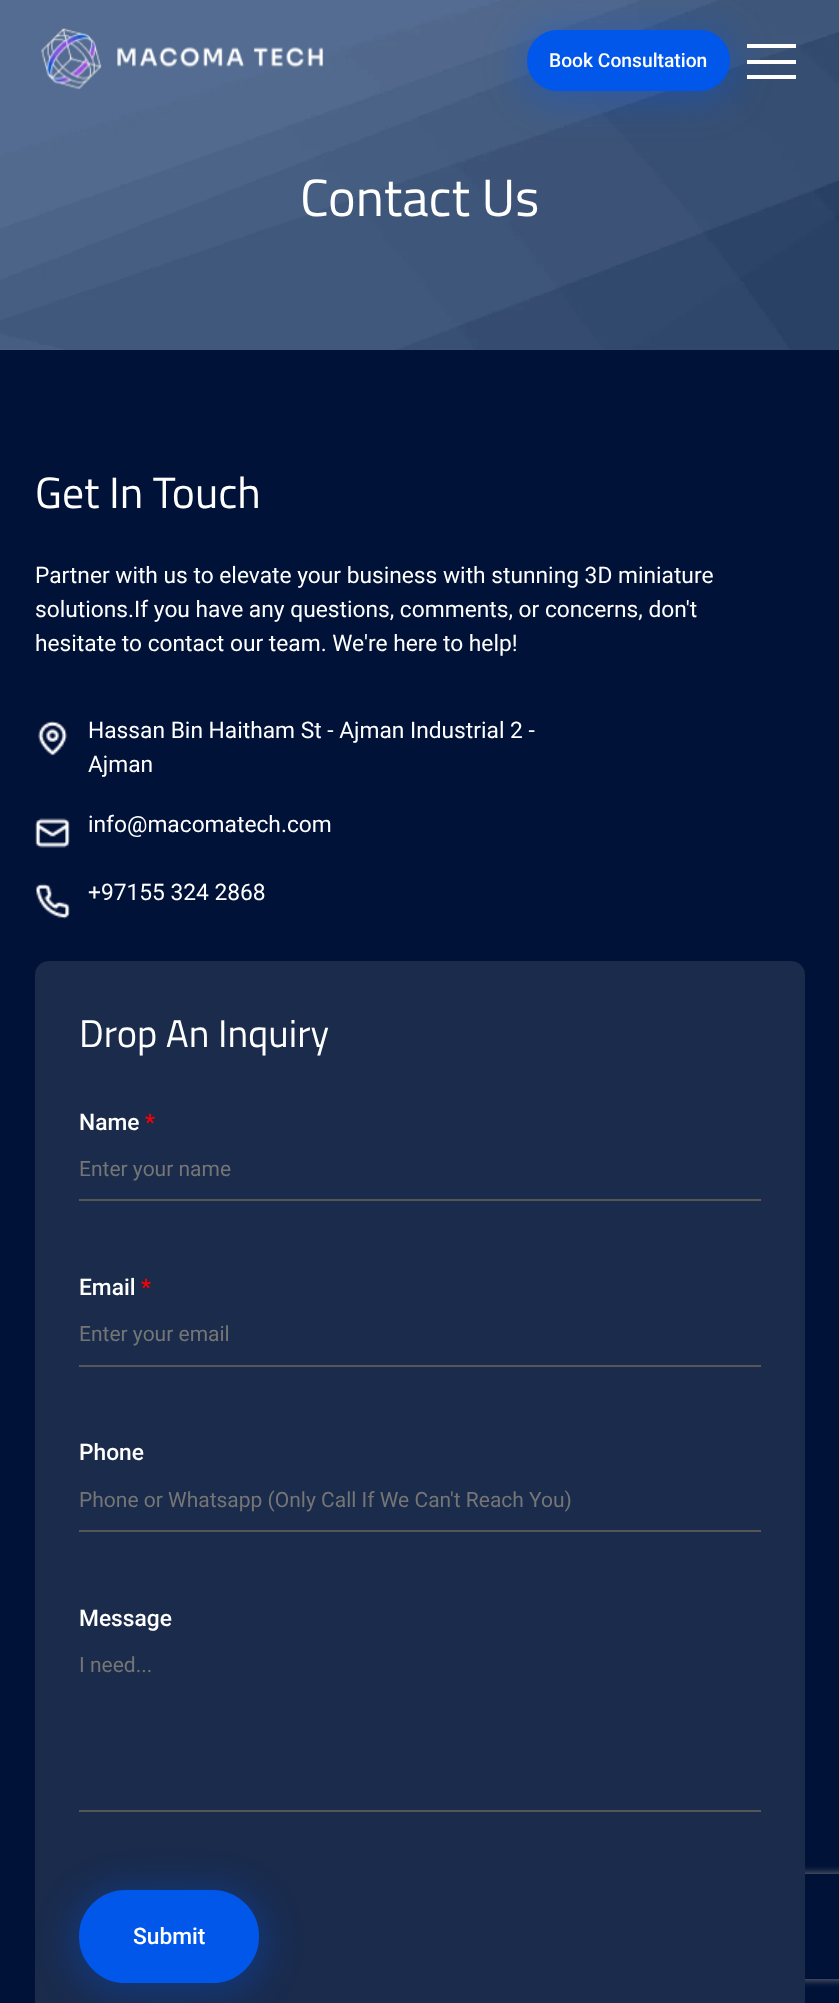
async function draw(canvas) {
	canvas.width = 839;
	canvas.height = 2003;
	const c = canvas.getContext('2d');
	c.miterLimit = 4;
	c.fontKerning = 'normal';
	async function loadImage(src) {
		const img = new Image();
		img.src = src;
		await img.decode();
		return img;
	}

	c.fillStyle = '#001238';
	c.fillRect(0, 0, 839, 2003);
	c.drawImage(await loadImage('img2.png'), 0, 0, 839, 350);
	c.drawImage(await loadImage('img1.png'), 41, 28, 283, 62);
	c.fillStyle = '#0056ea4a';
	c.filter = 'blur(17.5px)';
	c.beginPath();
	c.roundRect(518, 26, 221, 79, 39.5);
	c.fill();
	c.filter = 'none';
	c.fillStyle = '#0057ea';
	c.beginPath();
	c.roundRect(528, 31, 201, 59, 29.5);
	c.fill();
	c.strokeStyle = '#0057ea';
	c.lineWidth = 2;
	c.stroke();
	c.font = '500 19.25px Roboto';
	c.fillStyle = '#fff';
	c.fillText('Book Consultation', 549, 67);
	for (const [x, y, w, h, color] of [
		[747, 60, 49, 4, '#fff'],
		[747, 44, 49, 4, '#fff'],
		[747, 75, 49, 4, '#fff'],
	]) {
		c.fillStyle = color;
		c.fillRect(x, y, w, h);
	}
	c.font = '52.5px Titillium Web';
	c.fillText('Contact Us', 300, 216);
	c.font = '43.75px Titillium Web';
	c.fillText('Get In Touch', 35, 508);
	c.font = '22.75px Roboto';
	for (const [text, x, y] of [
		['Partner with us to elevate your business with stunning 3D miniature', 35, 583],
		['solutions.If you have any questions, comments, or concerns, don\'t', 35, 617],
		['hesitate to contact our team. We\'re here to help!', 35, 651],
	]) {
		c.fillText(text, x, y);
	}
	c.drawImage(await loadImage('img3.png'), 38, 721, 30, 35);
	c.fillText('Hassan Bin Haitham St - Ajman Industrial 2 -', 88, 738);
	c.fillText('Ajman', 88, 772);
	c.drawImage(await loadImage('img4.png'), 35, 818, 35, 30);
	c.fillText('info@macomatech.com', 88, 832);
	c.drawImage(await loadImage('img5.png'), 35, 883, 35, 36);
	c.fillText('+97155 324 2868', 88, 900);
	c.save();
	c.beginPath();
	c.moveTo(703, 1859);
	c.lineTo(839, 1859);
	c.lineTo(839, 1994);
	c.lineTo(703, 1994);
	c.closePath();
	c.moveTo(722, 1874);
	c.lineTo(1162, 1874);
	c.bezierCurveTo(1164, 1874, 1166, 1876, 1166, 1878);
	c.lineTo(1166, 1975);
	c.bezierCurveTo(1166, 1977, 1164, 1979, 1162, 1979);
	c.lineTo(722, 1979);
	c.bezierCurveTo(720, 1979, 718, 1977, 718, 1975);
	c.lineTo(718, 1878);
	c.bezierCurveTo(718, 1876, 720, 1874, 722, 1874);
	c.closePath();
	c.clip('evenodd');
	c.fillStyle = '#808080';
	c.filter = 'blur(4.5px)';
	c.beginPath();
	c.roundRect(718, 1874, 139, 105, 4);
	c.fill();
	c.filter = 'none';
	c.restore();
	c.fillStyle = '#1a2b4c';
	c.beginPath();
	c.roundRect(35, 961, 770, 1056, 14);
	c.fill();
	c.font = '38.5px Titillium Web';
	c.fillStyle = '#fff';
	c.fillText('Drop An Inquiry', 79, 1047);
	c.font = '500 22.75px Roboto';
	c.fillText('Name', 79, 1130);
	c.fillStyle = '#f00';
	c.fillText('*', 145, 1130);
	c.fillStyle = '#565656';
	c.fillRect(79, 1199, 682, 2);
	c.font = '21px Roboto';
	c.fillStyle = '#757575';
	c.fillText('Enter your name', 79, 1176);
	c.font = '500 22.75px Roboto';
	c.fillStyle = '#fff';
	c.fillText('Email', 79, 1295);
	c.fillStyle = '#f00';
	c.fillText('*', 141, 1295);
	c.fillStyle = '#565656';
	c.fillRect(79, 1365, 682, 2);
	c.font = '21px Roboto';
	c.fillStyle = '#757575';
	c.fillText('Enter your email', 79, 1341);
	c.font = '500 22.75px Roboto';
	c.fillStyle = '#fff';
	c.fillText('Phone', 79, 1460);
	c.fillStyle = '#565656';
	c.fillRect(79, 1530, 682, 2);
	c.font = '21px Roboto';
	c.fillStyle = '#757575';
	c.fillText('Phone or Whatsapp (Only Call If We Can\'t Reach You)', 79, 1507);
	c.font = '500 22.75px Roboto';
	c.fillStyle = '#fff';
	c.fillText('Message', 79, 1626);
	c.fillStyle = '#565656';
	c.fillRect(79, 1810, 682, 2);
	c.font = '21px Roboto';
	c.fillStyle = '#757575';
	c.fillText('I need...', 79, 1672);
	c.fillStyle = '#0056ea4a';
	c.filter = 'blur(17.5px)';
	c.beginPath();
	c.roundRect(70, 1887, 198, 110, 55);
	c.fill();
	c.filter = 'none';
	c.fillStyle = '#0057ea';
	c.beginPath();
	c.roundRect(80, 1891, 178, 91, 45.5);
	c.fill();
	c.stroke();
	c.font = '500 22.75px Roboto';
	c.fillStyle = '#fff';
	c.fillText('Submit', 133, 1944);
}

draw(document.querySelector('canvas'));
